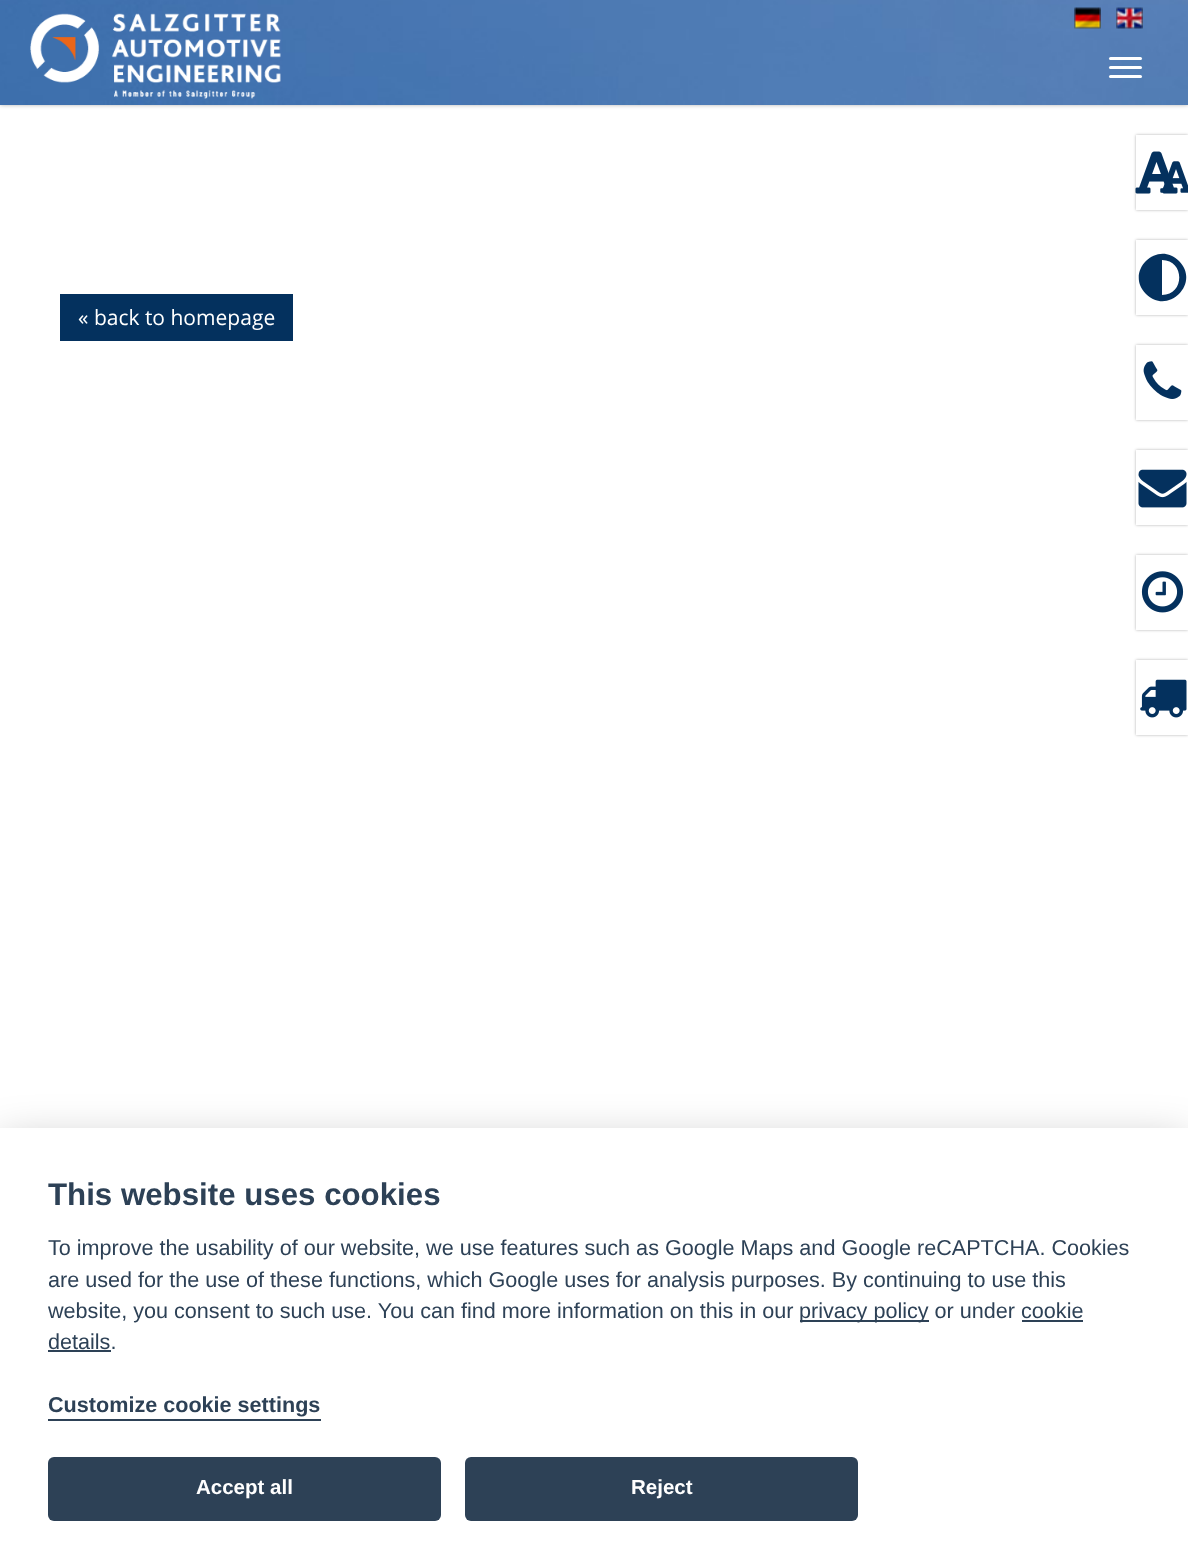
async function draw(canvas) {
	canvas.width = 1188;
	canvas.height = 1568;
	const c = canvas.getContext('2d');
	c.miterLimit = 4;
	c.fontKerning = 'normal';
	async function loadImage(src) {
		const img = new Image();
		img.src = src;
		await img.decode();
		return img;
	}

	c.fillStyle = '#fff';
	c.fillRect(0, 0, 1188, 1568);
	c.fillStyle = '#0000004d';
	c.filter = 'blur(2px)';
	c.beginPath();
	c.rect(0, 0, 1188, 105);
	c.fill();
	c.filter = 'none';
	c.drawImage(await loadImage('img1.png'), 0, 0, 1188, 105);
	c.drawImage(await loadImage('img2.png'), 1074, 7, 27, 22);
	c.drawImage(await loadImage('img3.png'), 1116, 7, 27, 22);
	c.drawImage(await loadImage('img4.png'), 30, 13, 251, 86);
	c.fillStyle = '#fff';
	c.beginPath();
	c.roundRect(1109, 57, 33, 3, 1.5);
	c.fill();
	c.beginPath();
	c.roundRect(1109, 66, 33, 3, 1.5);
	c.fill();
	c.beginPath();
	c.roundRect(1109, 75, 33, 3, 1.5);
	c.fill();
	c.fillStyle = '#04315e';
	c.fillRect(60, 294, 233, 47);
	c.font = '21px Open Sans';
	c.fillStyle = '#fff';
	c.fillText('« back to homepage', 78, 325);
	c.save();
	c.beginPath();
	c.moveTo(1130, 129);
	c.lineTo(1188, 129);
	c.lineTo(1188, 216);
	c.lineTo(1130, 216);
	c.closePath();
	c.moveTo(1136, 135);
	c.lineTo(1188, 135);
	c.lineTo(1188, 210);
	c.lineTo(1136, 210);
	c.closePath();
	c.clip('evenodd');
	c.fillStyle = '#0000004d';
	c.filter = 'blur(1.5px)';
	c.beginPath();
	c.rect(1136, 135, 52, 75);
	c.fill();
	c.filter = 'none';
	c.restore();
	c.drawImage(await loadImage('img5.png'), 1135, 151, 43, 43);
	c.drawImage(await loadImage('img6.png'), 1160, 161, 28, 32);
	c.save();
	c.beginPath();
	c.moveTo(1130, 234);
	c.lineTo(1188, 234);
	c.lineTo(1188, 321);
	c.lineTo(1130, 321);
	c.closePath();
	c.moveTo(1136, 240);
	c.lineTo(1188, 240);
	c.lineTo(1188, 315);
	c.lineTo(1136, 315);
	c.closePath();
	c.clip('evenodd');
	c.fillStyle = '#0000004d';
	c.filter = 'blur(1.5px)';
	c.beginPath();
	c.rect(1136, 240, 52, 75);
	c.fill();
	c.filter = 'none';
	c.restore();
	c.fillStyle = '#04315e';
	c.beginPath();
	c.moveTo(1146, 294);
	c.bezierCurveTo(1124, 272, 1157, 239, 1179, 261);
	c.bezierCurveTo(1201, 283, 1168, 316, 1146, 294);
	c.closePath();
	c.moveTo(1162, 295);
	c.bezierCurveTo(1185, 295, 1185, 260, 1162, 260);
	c.closePath();
	c.fill();
	c.save();
	c.beginPath();
	c.moveTo(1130, 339);
	c.lineTo(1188, 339);
	c.lineTo(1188, 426);
	c.lineTo(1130, 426);
	c.closePath();
	c.moveTo(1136, 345);
	c.lineTo(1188, 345);
	c.lineTo(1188, 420);
	c.lineTo(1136, 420);
	c.closePath();
	c.clip('evenodd');
	c.fillStyle = '#0000004d';
	c.filter = 'blur(1.5px)';
	c.beginPath();
	c.rect(1136, 345, 52, 75);
	c.fill();
	c.filter = 'none';
	c.restore();
	c.drawImage(await loadImage('img7.png'), 1143, 361, 39, 38);
	c.save();
	c.beginPath();
	c.moveTo(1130, 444);
	c.lineTo(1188, 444);
	c.lineTo(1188, 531);
	c.lineTo(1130, 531);
	c.closePath();
	c.moveTo(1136, 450);
	c.lineTo(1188, 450);
	c.lineTo(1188, 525);
	c.lineTo(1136, 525);
	c.closePath();
	c.clip('evenodd');
	c.fillStyle = '#0000004d';
	c.filter = 'blur(1.5px)';
	c.beginPath();
	c.rect(1136, 450, 52, 75);
	c.fill();
	c.filter = 'none';
	c.restore();
	c.drawImage(await loadImage('img8.png'), 1138, 469, 49, 39);
	c.save();
	c.beginPath();
	c.moveTo(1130, 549);
	c.lineTo(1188, 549);
	c.lineTo(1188, 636);
	c.lineTo(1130, 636);
	c.closePath();
	c.moveTo(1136, 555);
	c.lineTo(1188, 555);
	c.lineTo(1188, 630);
	c.lineTo(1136, 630);
	c.closePath();
	c.clip('evenodd');
	c.fillStyle = '#0000004d';
	c.filter = 'blur(1.5px)';
	c.beginPath();
	c.rect(1136, 555, 52, 75);
	c.fill();
	c.filter = 'none';
	c.restore();
	c.drawImage(await loadImage('img9.png'), 1141, 571, 43, 42);
	c.save();
	c.beginPath();
	c.moveTo(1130, 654);
	c.lineTo(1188, 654);
	c.lineTo(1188, 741);
	c.lineTo(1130, 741);
	c.closePath();
	c.moveTo(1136, 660);
	c.lineTo(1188, 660);
	c.lineTo(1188, 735);
	c.lineTo(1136, 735);
	c.closePath();
	c.clip('evenodd');
	c.fillStyle = '#0000004d';
	c.filter = 'blur(1.5px)';
	c.beginPath();
	c.rect(1136, 660, 52, 75);
	c.fill();
	c.filter = 'none';
	c.restore();
	c.drawImage(await loadImage('img10.png'), 1140, 679, 47, 39);
	c.fillStyle = '#02020347';
	c.filter = 'blur(22.5px)';
	c.beginPath();
	c.rect(0, 1143, 1188, 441);
	c.fill();
	c.filter = 'none';
	c.fillStyle = '#fff';
	c.fillRect(0, 1128, 1188, 440);
	c.font = 'bold 31.25px Liberation Sans';
	c.fillStyle = '#2d4156';
	c.fillText('This website uses cookies', 48, 1205);
	c.font = '21.6px Liberation Sans';
	for (const [text, x, y] of [
		['To improve the usability of our website, we use features such as Google Maps and Google reCAPTCHA. Cookies', 48, 1255],
		['are used for the use of these functions, which Google uses for analysis purposes. By continuing to use this', 48, 1287],
		['website, you consent to such use. You can find more information on this in our', 48, 1318],
	]) {
		c.fillText(text, x, y);
	}
	c.fillRect(800, 1320, 129, 2);
	c.fillText('privacy policy or under cookie', 799, 1318);
	c.fillText('details.', 48, 1349);
	c.fillRect(1022, 1320, 61, 2);
	c.fillRect(48, 1350, 63, 2);
	c.font = 'bold 21.6px Liberation Sans';
	c.fillText('Customize cookie settings', 48, 1412);
	c.fillRect(48, 1419, 273, 2);
	c.beginPath();
	c.roundRect(48, 1457, 393, 64, 6);
	c.fill();
	c.font = 'bold 20.5px Liberation Sans';
	c.fillStyle = '#fff';
	c.fillText('Accept all', 196, 1494);
	c.fillStyle = '#2d4156';
	c.beginPath();
	c.roundRect(465, 1457, 393, 64, 6);
	c.fill();
	c.fillStyle = '#fff';
	c.fillText('Reject', 631, 1494);
}

draw(document.querySelector('canvas'));
